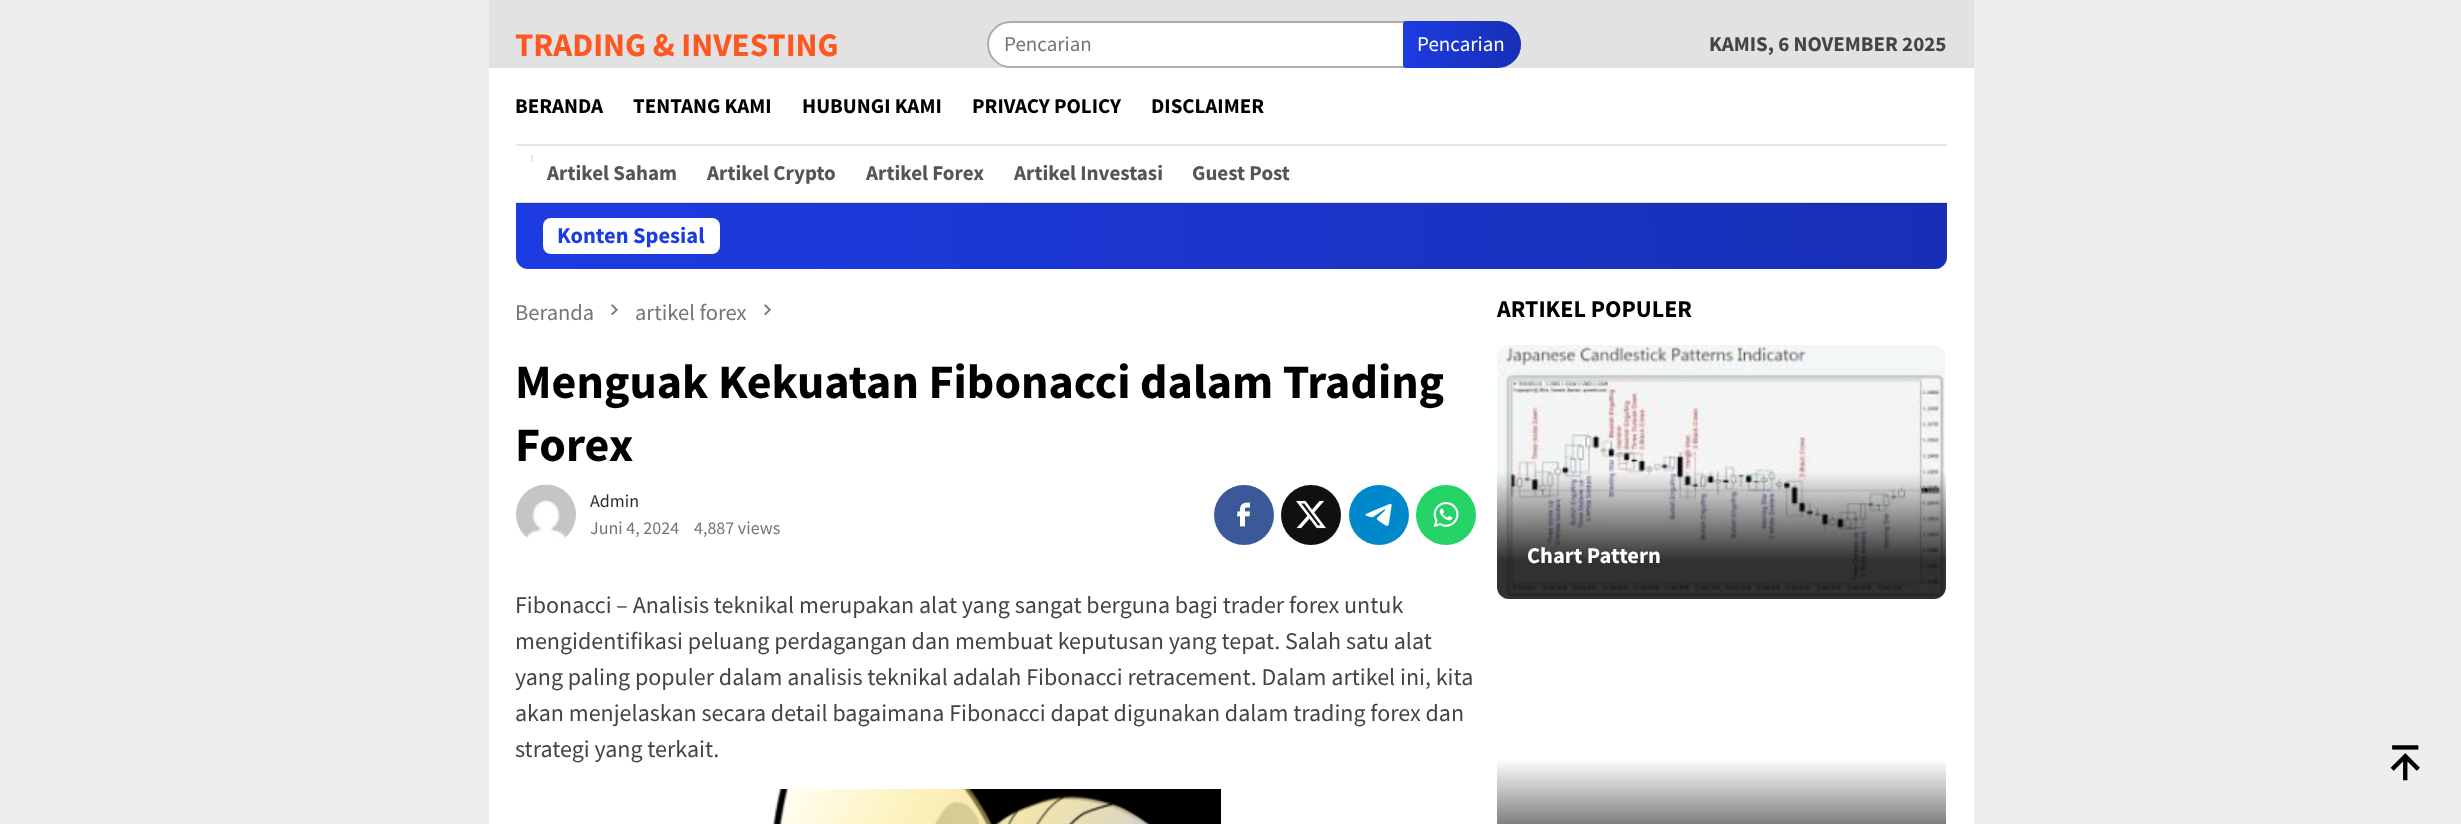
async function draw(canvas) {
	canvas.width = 2461;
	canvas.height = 824;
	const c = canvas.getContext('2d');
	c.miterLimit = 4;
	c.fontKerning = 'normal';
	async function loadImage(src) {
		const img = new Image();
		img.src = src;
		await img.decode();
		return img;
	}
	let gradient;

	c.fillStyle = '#eee';
	c.fillRect(0, 0, 2461, 824);
	c.fillStyle = '#e2e2e2';
	c.fillRect(489, 0, 1485, 68);
	c.font = 'bold 33px Source Sans Pro';
	c.fillStyle = '#ff5722';
	c.fillText('TRADING & INVESTING', 515, 56);
	c.fillStyle = '#fff';
	c.beginPath();
	c.roundRect(988, 22, 532, 45, 22.5);
	c.fill();
	c.strokeStyle = '#adadad';
	c.lineWidth = 2;
	c.stroke();
	c.font = '21px Source Sans Pro';
	c.fillStyle = '#757575';
	c.fillText('Pencarian', 1004, 51);
	c.fillStyle = '#1d3be2';
	c.beginPath();
	c.roundRect(1403, 21, 118, 47, [3, 23.5, 23.5, 3]);
	c.fill();
	gradient = c.createLinearGradient(1403, 44, 1521, 44);
	gradient.addColorStop(0, '#00000000');
	gradient.addColorStop(1, '#00000033');
	c.fillStyle = gradient;
	c.beginPath();
	c.roundRect(1403, 21, 118, 47, [3, 23.5, 23.5, 3]);
	c.fill();
	c.fillStyle = '#fff';
	c.fillText('Pencarian', 1417, 51);
	c.font = 'bold 21px Source Sans Pro';
	c.fillStyle = '#444';
	c.fillText('KAMIS, 6 NOVEMBER 2025', 1709, 51);
	c.fillStyle = '#fff';
	c.fillRect(489, 68, 1485, 756);
	c.fillStyle = '#e6e6e6';
	c.fillRect(516, 144, 1431, 2);
	c.fillStyle = '#000';
	for (const [text, x, y] of [
		['BERANDA', 515, 113],
		['TENTANG KAMI', 633, 113],
		['HUBUNGI KAMI', 802, 113],
		['PRIVACY POLICY', 972, 113],
		['DISCLAIMER', 1151, 113],
	]) {
		c.fillText(text, x, y);
	}
	c.fillStyle = '#1d3be2';
	c.beginPath();
	c.roundRect(516, 203, 1431, 66, [0, 0, 12, 12]);
	c.fill();
	gradient = c.createLinearGradient(516, 236, 1947, 235);
	gradient.addColorStop(0, '#00000000');
	gradient.addColorStop(1, '#00000033');
	c.fillStyle = gradient;
	c.beginPath();
	c.roundRect(516, 203, 1431, 66, [0, 0, 12, 12]);
	c.fill();
	c.fillStyle = '#0000001a';
	c.fillRect(516, 202, 1431, 2);
	c.fillStyle = '#e6e6e6';
	c.fillRect(531, 155, 2, 6);
	c.fillStyle = '#555';
	for (const [text, x, y] of [
		['Artikel Saham', 547, 180],
		['Artikel Crypto', 707, 180],
		['Artikel Forex', 866, 180],
		['Artikel Investasi', 1014, 180],
		['Guest Post', 1192, 180],
	]) {
		c.fillText(text, x, y);
	}
	c.fillStyle = '#fff';
	c.beginPath();
	c.roundRect(543, 218, 177, 36, 8);
	c.fill();
	c.font = 'bold 22.5px Source Sans Pro';
	c.fillStyle = '#1d3be2';
	c.fillText('Konten Spesial', 557, 243);
	c.font = '22.5px Source Sans Pro';
	c.fillStyle = '#757575';
	c.fillText('Beranda', 515, 320);
	c.drawImage(await loadImage('img1.png'), 611, 304, 7, 12);
	c.fillText('artikel forex', 635, 320);
	c.drawImage(await loadImage('img1.png'), 764, 304, 7, 12);
	c.font = 'bold 48px Source Sans Pro';
	c.fillStyle = '#000';
	c.fillText('Menguak Kekuatan Fibonacci dalam Trading', 515, 398);
	c.fillText('Forex', 515, 461);
	c.drawImage(await loadImage('img2.png'), 516, 484, 60, 54);
	c.font = '18px Source Sans Pro';
	c.fillStyle = '#2e2e2e';
	c.fillText('Admin', 590, 507);
	c.fillStyle = '#757575';
	c.fillText('Juni 4, 2024', 590, 534);
	c.fillText('4,887 views', 694, 534);
	c.fillStyle = '#3b5998';
	c.beginPath();
	c.arc(1244, 515, 30, 0, 2 * Math.PI);
	c.fill();
	c.drawImage(await loadImage('img3.png'), 1237, 502, 13, 25);
	c.fillStyle = '#101010';
	c.beginPath();
	c.arc(1311, 515, 30, 0, 2 * Math.PI);
	c.fill();
	c.drawImage(await loadImage('img4.png'), 1296, 500, 30, 29);
	c.fillStyle = '#08c';
	c.beginPath();
	c.arc(1379, 515, 30, 0, 2 * Math.PI);
	c.fill();
	c.drawImage(await loadImage('img5.png'), 1365, 503, 27, 23);
	c.fillStyle = '#25d366';
	c.beginPath();
	c.arc(1446, 515, 30, 0, 2 * Math.PI);
	c.fill();
	c.drawImage(await loadImage('img6.png'), 1433, 502, 26, 25);
	c.font = '24px Source Sans Pro';
	c.fillStyle = '#444';
	for (const [text, x, y] of [
		['Fibonacci – Analisis teknikal merupakan alat yang sangat berguna bagi trader forex untuk', 515, 613],
		['mengidentifikasi peluang perdagangan dan membuat keputusan yang tepat. Salah satu alat', 515, 649],
		['yang paling populer dalam analisis teknikal adalah Fibonacci retracement. Dalam artikel ini, kita', 515, 685],
		['akan menjelaskan secara detail bagaimana Fibonacci dapat digunakan dalam trading forex dan', 515, 721],
		['strategi yang terkait.', 515, 757],
	]) {
		c.fillText(text, x, y);
	}
	c.drawImage(await loadImage('img7.png'), 772, 789, 449, 35);
	c.font = 'bold 24px Source Sans Pro';
	c.fillStyle = '#000';
	c.fillText('ARTIKEL POPULER', 1497, 317);
	c.drawImage(await loadImage('img8.png'), 1497, 345, 448, 253);
	gradient = c.createLinearGradient(1721, 471, 1721, 599);
	gradient.addColorStop(0, '#00000000');
	gradient.addColorStop(0.7, '#000000cc');
	c.fillStyle = gradient;
	c.beginPath();
	c.roundRect(1497, 471, 449, 128, [0, 0, 12, 12]);
	c.fill();
	c.font = 'bold 22.5px Source Sans Pro';
	c.fillStyle = '#fff';
	c.fillText('Chart Pattern', 1527, 563);
	gradient = c.createLinearGradient(1721, 759, 1721, 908);
	gradient.addColorStop(0, '#fff');
	gradient.addColorStop(0.7, '#333');
	c.fillStyle = gradient;
	c.fillRect(1497, 760, 449, 64);
	c.drawImage(await loadImage('img9.png'), 2390, 745, 30, 36);
}

draw(document.querySelector('canvas'));
